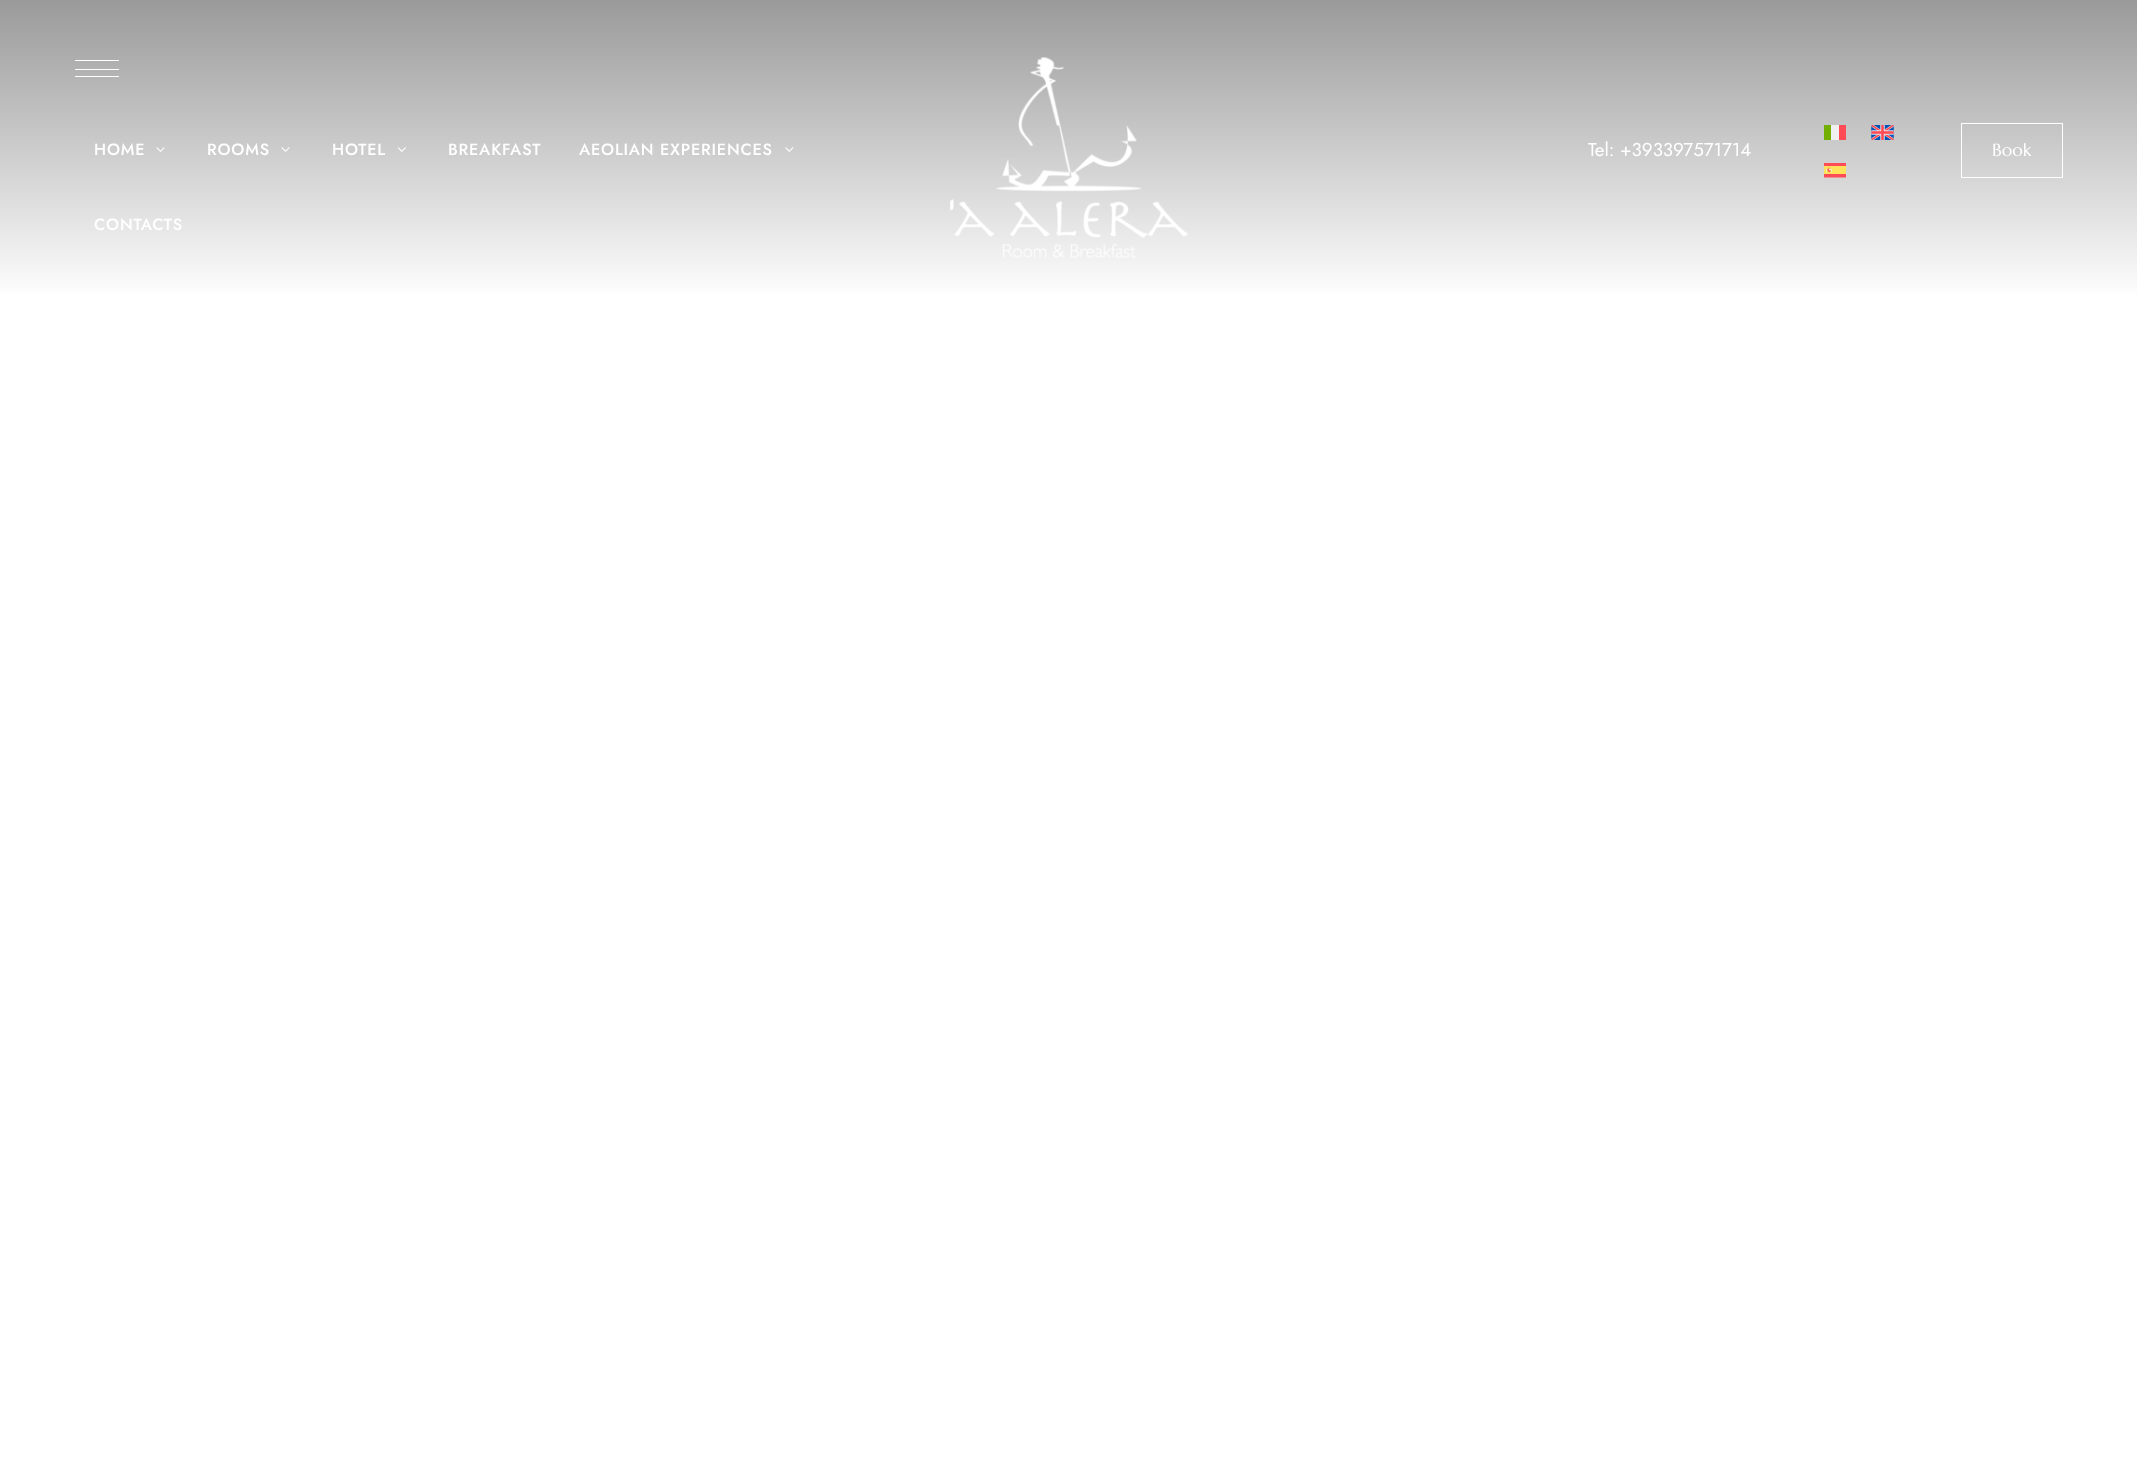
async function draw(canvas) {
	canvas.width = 2137;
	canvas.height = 1470;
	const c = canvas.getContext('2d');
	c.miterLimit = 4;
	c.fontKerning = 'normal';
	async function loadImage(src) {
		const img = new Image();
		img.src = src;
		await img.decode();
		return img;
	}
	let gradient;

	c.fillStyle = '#fff';
	c.fillRect(0, 0, 2137, 1470);
	gradient = c.createLinearGradient(1069, 0, 1069, 300);
	gradient.addColorStop(0, '#9a9a9a');
	gradient.addColorStop(1, '#fff');
	c.fillStyle = gradient;
	c.fillRect(0, 0, 2137, 293);
	for (const [x, y, w, h, color] of [
		[75, 60, 44, 1, '#fff'],
		[75, 76, 44, 1, '#fff'],
		[75, 69, 44, 1, '#fff'],
	]) {
		c.fillStyle = color;
		c.fillRect(x, y, w, h);
	}
	c.letterSpacing = '0.8px';
	c.font = '500 16.25px Jost';
	c.fillText('HOME', 94, 155);
	c.drawImage(await loadImage('img1.png'), 156, 147, 9, 5);
	c.fillText('ROOMS', 207, 155);
	c.drawImage(await loadImage('img1.png'), 281, 147, 9, 5);
	c.fillText('HOTEL', 332, 155);
	c.drawImage(await loadImage('img2.png'), 397, 147, 9, 5);
	c.fillText('BREAKFAST', 448, 155);
	c.fillText('AEOLIAN EXPERIENCES', 579, 155);
	c.drawImage(await loadImage('img3.png'), 785, 147, 9, 5);
	c.fillText('CONTACTS', 94, 230);
	c.drawImage(await loadImage('img4.png'), 950, 57, 238, 201);
	c.letterSpacing = '0px';
	c.font = '18.75px Jost';
	c.fillText('Tel: +393397571714', 1588, 156);
	for (const [x, y, w, h, color] of [
		[1824, 125, 7, 15, '#73af00'],
		[1831, 125, 8, 15, '#f0f0f0'],
		[1839, 125, 7, 15, '#ff4b55'],
	]) {
		c.fillStyle = color;
		c.fillRect(x, y, w, h);
	}
	c.drawImage(await loadImage('img5.png'), 1871, 125, 23, 15);
	c.drawImage(await loadImage('img6.png'), 1824, 163, 22, 15);
	c.strokeStyle = '#fff';
	c.strokeRect(1961.5, 123.5, 101, 54);
	c.font = '17.5px Marcellus';
	c.fillStyle = '#fff';
	c.fillText('Book', 1992, 156);
}

draw(document.querySelector('canvas'));
